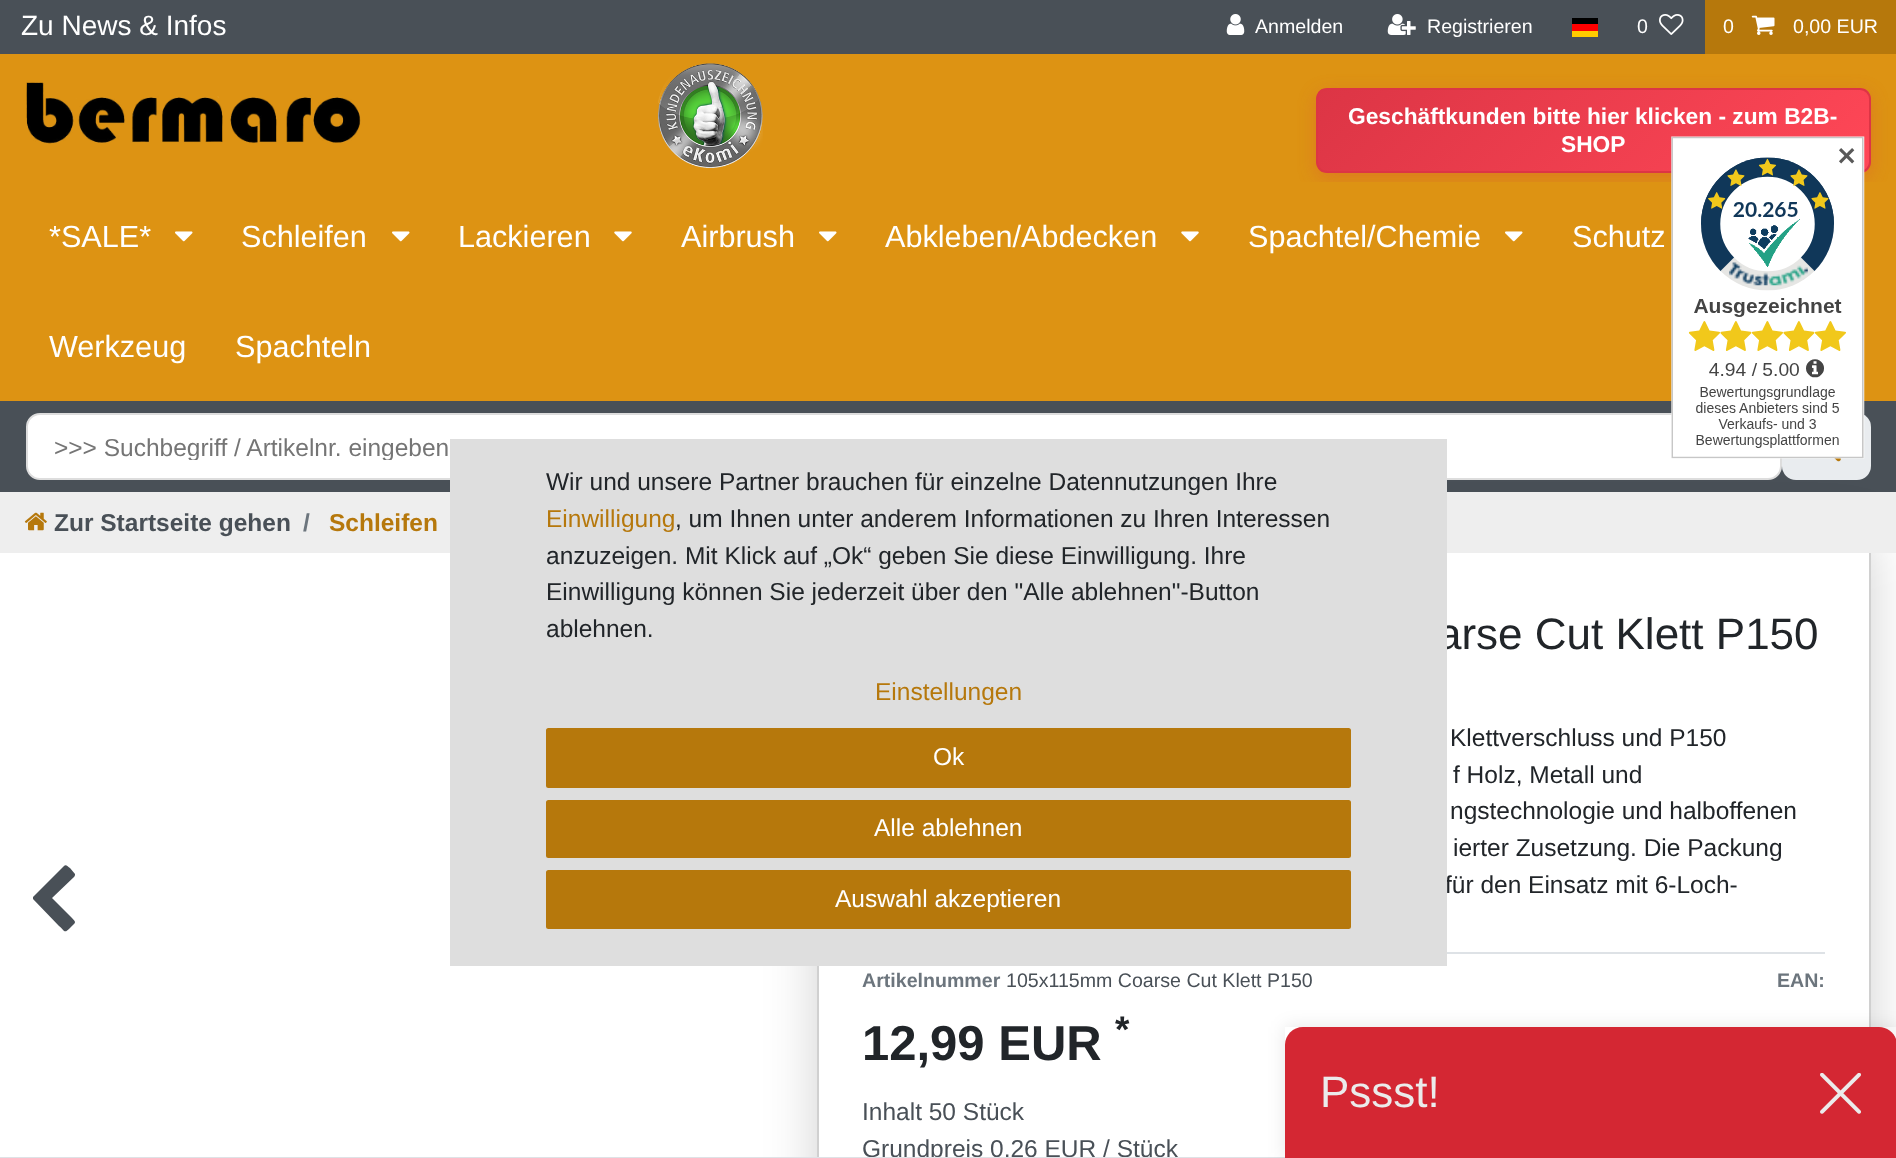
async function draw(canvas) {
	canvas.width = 1896;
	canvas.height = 1158;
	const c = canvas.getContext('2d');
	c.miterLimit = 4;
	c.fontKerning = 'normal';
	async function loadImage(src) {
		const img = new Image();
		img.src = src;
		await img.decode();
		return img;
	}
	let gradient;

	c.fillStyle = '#fff';
	c.fillRect(0, 0, 1896, 1158);
	c.fillStyle = '#495057';
	c.fillRect(0, 0, 1896, 492);
	c.font = '28px Liberation Sans';
	c.fillStyle = '#fff';
	c.fillText('Zu News & Infos', 21, 35);
	c.drawImage(await loadImage('img1.png'), 1226, 14, 19, 21);
	c.font = '19.6px Liberation Sans';
	c.fillText('Anmelden', 1255, 33);
	c.drawImage(await loadImage('img2.png'), 1387, 14, 29, 21);
	c.fillText('Registrieren', 1427, 33);
	for (const [x, y, w, h, color] of [
		[1572, 31, 26, 6, '#fc0'],
		[1572, 18, 26, 6, '#000'],
		[1572, 24, 26, 7, '#f00'],
	]) {
		c.fillStyle = color;
		c.fillRect(x, y, w, h);
	}
	c.fillStyle = '#fff';
	c.fillText('0', 1637, 33);
	c.drawImage(await loadImage('img3.png'), 1659, 14, 25, 21);
	c.fillStyle = '#b6780c';
	c.fillRect(1705, 0, 191, 54);
	c.fillStyle = '#fff';
	c.fillText('0', 1723, 33);
	c.drawImage(await loadImage('img4.png'), 1751, 15, 24, 20);
	c.fillText('0,00 EUR', 1793, 33);
	c.fillStyle = '#dd9313';
	c.fillRect(0, 54, 1896, 128);
	c.drawImage(await loadImage('img5.png'), 26, 82, 335, 62);
	c.drawImage(await loadImage('img6.png'), 658, 63, 105, 105);
	c.fillStyle = '#dc354540';
	c.filter = 'blur(9px)';
	c.beginPath();
	c.roundRect(1316, 93, 555, 86, 11);
	c.fill();
	c.filter = 'none';
	c.save();
	c.beginPath();
	c.roundRect(1316, 88, 555, 85, 11);
	c.clip();
	gradient = c.createLinearGradient(1435, -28, 1752, 289);
	gradient.addColorStop(0, '#dc3545');
	gradient.addColorStop(1, '#ff4757');
	c.fillStyle = gradient;
	c.fillRect(1318, 89, 551, 83);
	c.restore();
	c.beginPath();
	c.roundRect(1317, 89, 553, 83, 10);
	c.strokeStyle = '#dc3545';
	c.lineWidth = 2;
	c.stroke();
	c.font = 'bold 22.75px Liberation Sans';
	c.fillStyle = '#fff';
	c.fillText('Geschäftkunden bitte hier klicken - zum B2B-', 1348, 124);
	c.fillText('SHOP', 1561, 152);
	c.fillStyle = '#dd9313';
	c.fillRect(0, 182, 1896, 219);
	c.font = '30.6px Liberation Sans';
	c.fillStyle = '#fff';
	c.fillText('*SALE*', 49, 247);
	c.drawImage(await loadImage('img7.png'), 175, 231, 18, 11);
	c.fillText('Schleifen', 241, 247);
	c.drawImage(await loadImage('img7.png'), 392, 231, 18, 11);
	c.fillText('Lackieren', 458, 247);
	c.drawImage(await loadImage('img8.png'), 614, 231, 18, 11);
	c.fillText('Airbrush', 681, 247);
	c.drawImage(await loadImage('img7.png'), 819, 231, 18, 11);
	c.fillText('Abkleben/Abdecken', 885, 247);
	c.drawImage(await loadImage('img8.png'), 1181, 231, 18, 11);
	c.fillText('Spachtel/Chemie', 1248, 247);
	c.drawImage(await loadImage('img7.png'), 1505, 231, 18, 11);
	for (const [text, x, y] of [
		['Schutz', 1572, 247],
		['Werkzeug', 49, 357],
		['Spachteln', 235, 357],
	]) {
		c.fillText(text, x, y);
	}
	c.fillStyle = '#0000002e';
	c.filter = 'blur(26px)';
	c.beginPath();
	c.roundRect(817, 536, 1054, 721, 21);
	c.fill();
	c.filter = 'none';
	c.fillStyle = '#fff';
	c.beginPath();
	c.roundRect(27, 414, 1754, 65, 13);
	c.fill();
	c.strokeStyle = '#ddd';
	c.stroke();
	c.save();
	c.beginPath();
	c.rect(54, 432, 1675, 28);
	c.clip();
	c.font = '24.5px Liberation Sans';
	c.fillStyle = '#757575';
	c.fillText('>>> Suchbegriff / Artikelnr. eingeben', 54, 456);
	c.restore();
	c.fillStyle = '#e9ecef';
	c.beginPath();
	c.roundRect(1782, 413, 89, 67, 14);
	c.fill();
	c.drawImage(await loadImage('img9.png'), 1834, 458, 7, 4);
	c.fillStyle = '#fff';
	c.fillRect(819, 553, 1050, 604);
	c.strokeStyle = '#d0d0d0';
	c.strokeRect(818, 523, 1052, 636);
	c.fillStyle = '#eee';
	c.fillRect(0, 492, 1896, 61);
	c.drawImage(await loadImage('img10.png'), 24, 512, 23, 19);
	c.font = 'bold 24.5px Liberation Sans';
	c.fillStyle = '#495057';
	c.fillText('Zur Startseite gehen', 54, 531);
	c.fillStyle = '#6c757d';
	c.fillText('/', 303, 531);
	c.fillStyle = '#b6780c';
	c.fillText('Schleifen', 329, 531);
	c.font = '24.5px Liberation Sans';
	c.fillStyle = '#495057';
	c.fillText('Grundpreis 0,26 EUR / Stück', 862, 1157);
	c.fillStyle = '#dee2e6';
	c.fillRect(0, 1157, 1285, 1);
	c.font = '44px Liberation Sans';
	c.fillStyle = '#212529';
	c.fillText('arse Cut Klett P150', 1437, 649);
	c.font = '24.5px Liberation Sans';
	c.fillText('für den Einsatz mit 6-Loch-', 1445, 893);
	c.fillStyle = '#dedede';
	c.fillRect(450, 439, 997, 527);
	c.fillStyle = '#212529';
	c.fillText('Wir und unsere Partner brauchen für einzelne Datennutzungen Ihre', 546, 490);
	c.fillStyle = '#b6780c';
	c.fillText('Einwilligung', 546, 527);
	c.fillStyle = '#212529';
	for (const [text, x, y] of [
		[', um Ihnen unter anderem Informationen zu Ihren Interessen', 675, 527],
		['anzuzeigen. Mit Klick auf „Ok“ geben Sie diese Einwilligung. Ihre', 546, 564],
		['Einwilligung können Sie jederzeit über den "Alle ablehnen"-Button', 546, 600],
		['ablehnen.', 546, 637],
	]) {
		c.fillText(text, x, y);
	}
	c.fillStyle = '#b6780c';
	c.fillText('Einstellungen', 875, 700);
	c.beginPath();
	c.roundRect(547, 729, 803, 58, 1.5);
	c.fill();
	c.strokeStyle = '#b6780c';
	c.stroke();
	c.fillStyle = '#fff';
	c.fillText('Ok', 933, 765);
	c.fillStyle = '#b6780c';
	c.beginPath();
	c.roundRect(547, 801, 803, 56, 1.5);
	c.fill();
	c.stroke();
	c.fillStyle = '#fff';
	c.fillText('Alle ablehnen', 874, 836);
	c.fillStyle = '#b6780c';
	c.beginPath();
	c.roundRect(547, 871, 803, 57, 1.5);
	c.fill();
	c.stroke();
	c.fillStyle = '#fff';
	c.fillText('Auswahl akzeptieren', 835, 907);
	c.fillStyle = '#495057';
	c.beginPath();
	c.moveTo(74, 877);
	c.lineTo(52, 898);
	c.lineTo(71, 917);
	c.bezierCurveTo(77, 923, 76, 922, 70, 928);
	c.bezierCurveTo(64, 934, 65, 931, 59, 926);
	c.lineTo(33, 899);
	c.lineTo(33, 897);
	c.lineTo(64, 866);
	c.bezierCurveTo(66, 864, 68, 867, 70, 868);
	c.lineTo(75, 874);
	c.bezierCurveTo(75, 875, 75, 876, 74, 877);
	c.closePath();
	c.fill();
	c.fillStyle = '#212529';
	for (const [text, x, y] of [
		['Klettverschluss und P150', 1450, 746],
		['f Holz, Metall und', 1453, 783],
		['ngstechnologie und halboffenen', 1450, 819],
		['ierter Zusetzung. Die Packung', 1453, 856],
	]) {
		c.fillText(text, x, y);
	}
	c.fillStyle = '#dee2e6';
	c.fillRect(1447, 952, 378, 2);
	c.font = 'bold 19.6px Liberation Sans';
	c.fillStyle = '#6c757d';
	c.fillText('Artikelnummer', 862, 987);
	c.font = '19.6px Liberation Sans';
	c.fillStyle = '#495057';
	c.fillText('105x115mm Coarse Cut Klett P150', 1006, 987);
	c.font = 'bold 19.6px Liberation Sans';
	c.fillStyle = '#6c757d';
	c.fillText('EAN:', 1777, 987);
	c.font = 'bold 37px Liberation Sans';
	c.fillStyle = '#212529';
	c.fillText('*', 1115, 1042);
	c.font = 'bold 49px Liberation Sans';
	c.fillText('12,99 EUR', 862, 1060);
	c.font = '24.5px Liberation Sans';
	c.fillStyle = '#495057';
	c.fillText('Inhalt 50 Stück', 862, 1120);
	c.drawImage(await loadImage('img11.png'), 1671, 136, 194, 323);
	c.font = 'bold 24.5px DejaVu Sans';
	c.fillStyle = '#595959';
	c.fillText('✕', 1836, 165);
	c.save();
	c.beginPath();
	c.moveTo(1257, 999);
	c.lineTo(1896, 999);
	c.lineTo(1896, 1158);
	c.lineTo(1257, 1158);
	c.closePath();
	c.moveTo(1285, 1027);
	c.lineTo(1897, 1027);
	c.lineTo(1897, 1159);
	c.lineTo(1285, 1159);
	c.closePath();
	c.clip('evenodd');
	c.fillStyle = '#0000001a';
	c.filter = 'blur(9px)';
	c.beginPath();
	c.rect(1285, 1027, 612, 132);
	c.fill();
	c.filter = 'none';
	c.restore();
	c.fillStyle = '#d42733';
	c.beginPath();
	c.moveTo(1303, 1027);
	c.lineTo(1879, 1027);
	c.bezierCurveTo(1889, 1027, 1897, 1035, 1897, 1045);
	c.lineTo(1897, 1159);
	c.lineTo(1285, 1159);
	c.lineTo(1285, 1045);
	c.bezierCurveTo(1285, 1035, 1293, 1027, 1303, 1027);
	c.closePath();
	c.fill();
	c.font = '44px Liberation Sans';
	c.fillStyle = '#ebebeb';
	c.fillText('Pssst!', 1320, 1107);
	c.drawImage(await loadImage('img12.png'), 1820, 1073, 41, 41);
}

draw(document.querySelector('canvas'));
